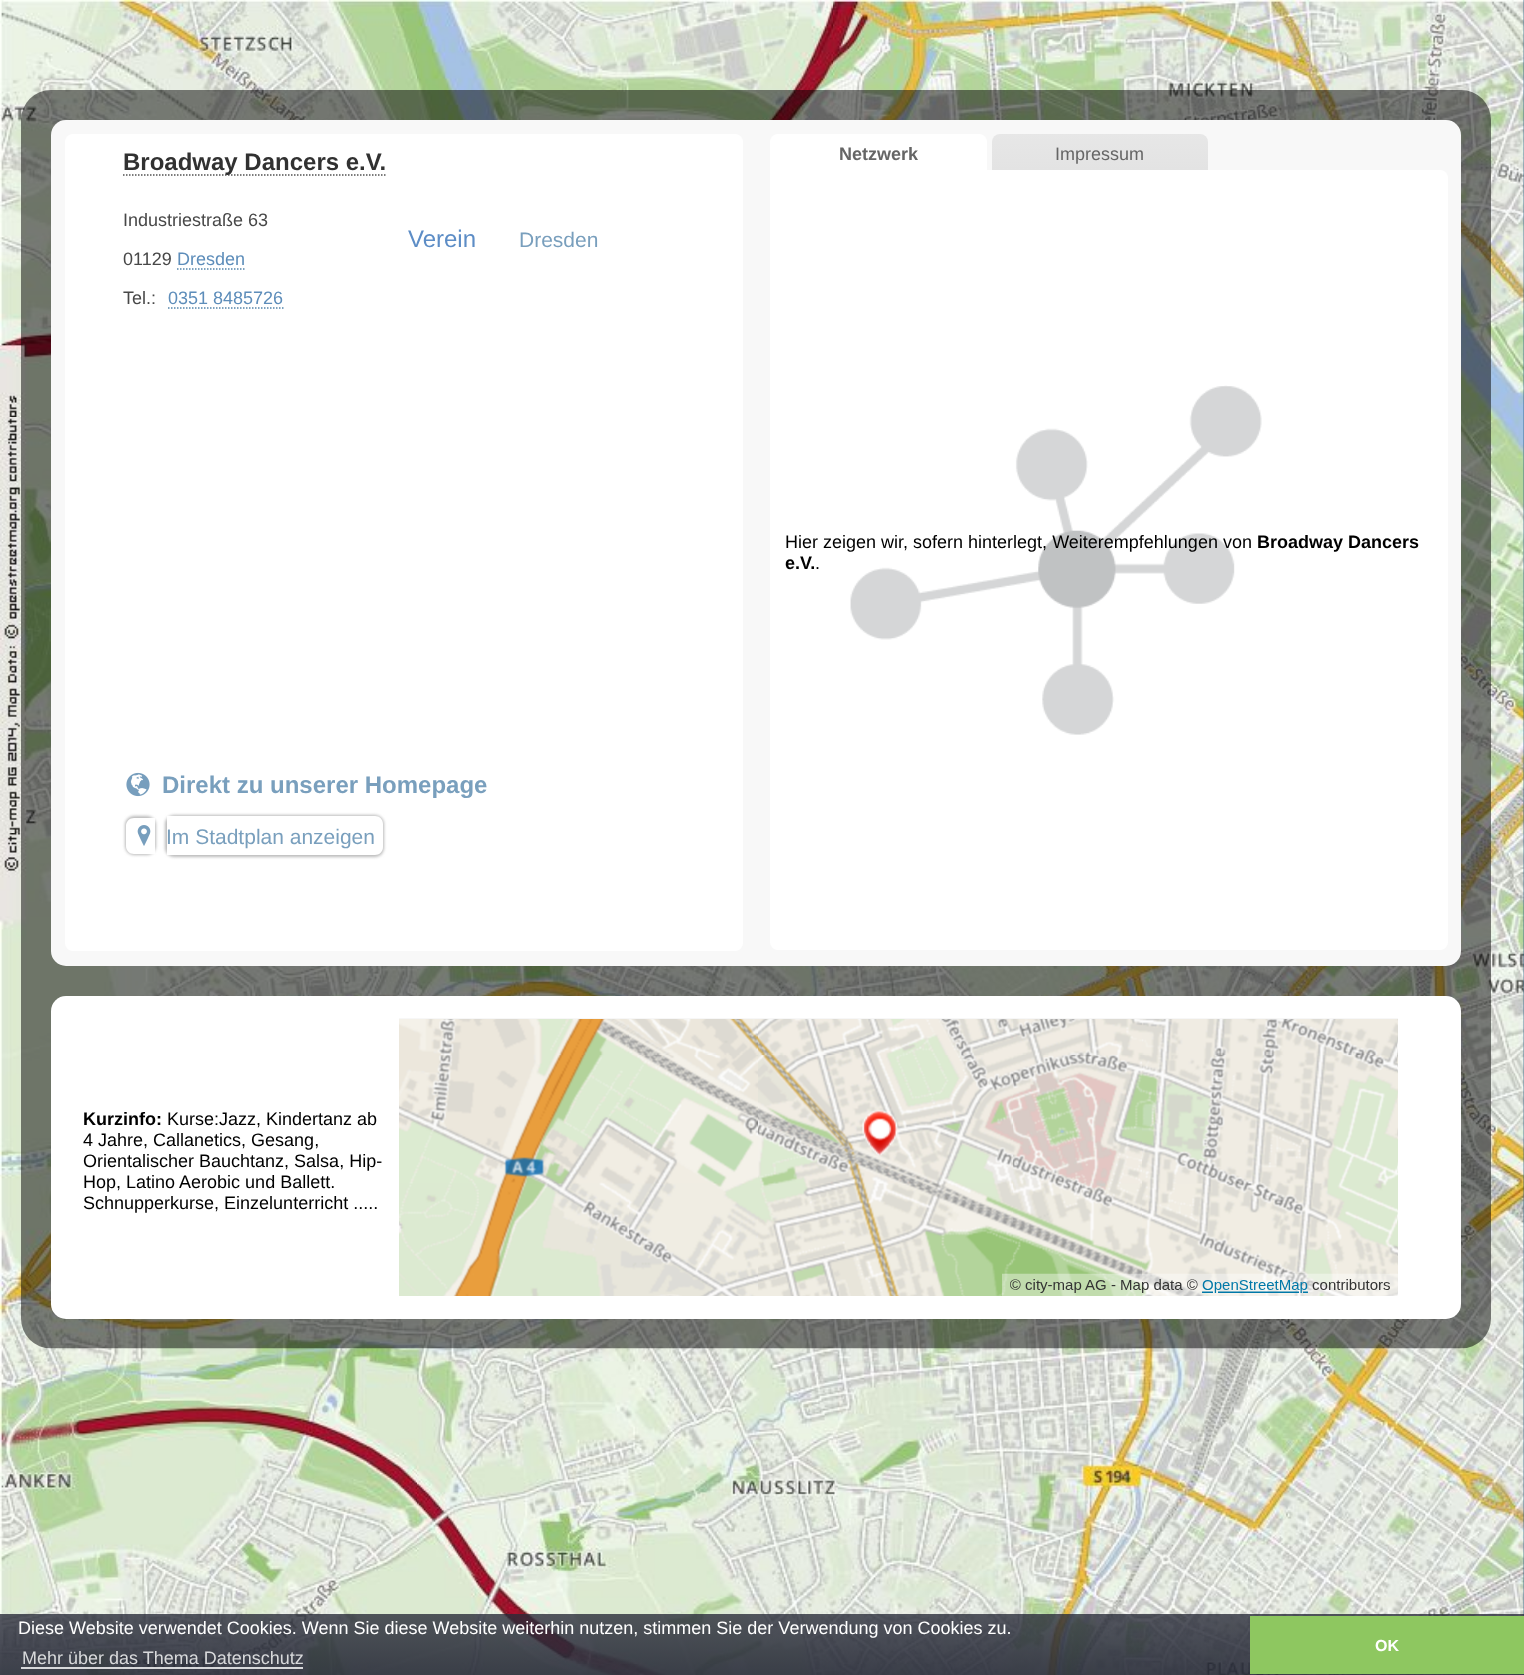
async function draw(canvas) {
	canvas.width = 1524;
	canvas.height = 1675;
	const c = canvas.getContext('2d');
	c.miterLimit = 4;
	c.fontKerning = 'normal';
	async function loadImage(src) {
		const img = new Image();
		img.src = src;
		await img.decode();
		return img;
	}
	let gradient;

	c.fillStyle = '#0e4b75';
	c.fillRect(0, 0, 1524, 1675);
	c.drawImage(await loadImage('img1.png'), 0, 0, 1524, 1675);
	c.drawImage(await loadImage('img2.png'), 21, 90, 1470, 1259);
	c.fillStyle = '#f8f8f8';
	c.beginPath();
	c.roundRect(51, 120, 1410, 846, 15);
	c.fill();
	c.fillStyle = '#fff';
	c.beginPath();
	c.roundRect(65, 134, 678, 817, 8);
	c.fill();
	c.beginPath();
	c.moveTo(123, 175);
	c.lineTo(387, 175);
	c.strokeStyle = '#525252';
	c.lineWidth = 1.5;
	c.setLineDash([1.5, 1.5]);
	c.stroke();
	c.font = 'bold 24px Liberation Sans';
	c.fillStyle = '#313131';
	c.fillText('Broadway Dancers e.V.', 123, 170);
	c.font = '18px Liberation Sans';
	c.fillStyle = '#484848';
	c.fillText('Industriestraße 63', 123, 226);
	c.fillText('01129', 123, 265);
	c.fillStyle = '#5d8dba';
	c.fillText('Dresden', 177, 265);
	c.beginPath();
	c.moveTo(177, 269);
	c.lineTo(244.5, 269);
	c.strokeStyle = '#5484ab';
	c.stroke();
	c.fillStyle = '#484848';
	c.fillText('Tel.:', 123, 304);
	c.fillStyle = '#5d8dba';
	c.fillText('0351 8485726', 168, 304);
	c.beginPath();
	c.moveTo(168, 308);
	c.lineTo(283.5, 308);
	c.stroke();
	c.font = '24px Liberation Sans';
	c.fillStyle = '#5d8dc6';
	c.fillText('Verein', 408, 247);
	c.font = '21px Liberation Sans';
	c.fillStyle = '#799fbd';
	c.fillText('Dresden', 519, 247);
	c.drawImage(await loadImage('img3.png'), 126, 772, 24, 25);
	c.font = 'bold 24px Liberation Sans';
	c.fillText('Direkt zu unserer Homepage', 162, 793);
	c.save();
	c.beginPath();
	c.moveTo(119, 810);
	c.lineTo(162, 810);
	c.lineTo(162, 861);
	c.lineTo(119, 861);
	c.closePath();
	c.moveTo(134, 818);
	c.lineTo(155, 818);
	c.lineTo(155, 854);
	c.lineTo(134, 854);
	c.bezierCurveTo(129.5, 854, 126, 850.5, 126, 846);
	c.lineTo(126, 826);
	c.bezierCurveTo(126, 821.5, 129.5, 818, 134, 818);
	c.closePath();
	c.clip('evenodd');
	c.fillStyle = '#bababa';
	c.filter = 'blur(1.5px)';
	c.beginPath();
	c.roundRect(125, 816, 31, 39, 9);
	c.fill();
	c.filter = 'none';
	c.restore();
	c.save();
	c.beginPath();
	c.moveTo(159, 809);
	c.lineTo(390, 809);
	c.lineTo(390, 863);
	c.lineTo(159, 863);
	c.closePath();
	c.moveTo(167, 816);
	c.lineTo(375, 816);
	c.bezierCurveTo(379.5, 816, 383, 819.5, 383, 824);
	c.lineTo(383, 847);
	c.bezierCurveTo(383, 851.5, 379.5, 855, 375, 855);
	c.lineTo(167, 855);
	c.closePath();
	c.clip('evenodd');
	c.fillStyle = '#bababa';
	c.filter = 'blur(1.5px)';
	c.beginPath();
	c.roundRect(165, 815, 219, 42, 9);
	c.fill();
	c.filter = 'none';
	c.restore();
	c.drawImage(await loadImage('img4.png'), 137, 825, 14, 21);
	c.font = '21px Liberation Sans';
	c.fillText('Im Stadtplan anzeigen', 166, 844);
	c.fillStyle = '#fff';
	c.beginPath();
	c.roundRect(770, 134, 217, 36, [8, 8, 0, 0]);
	c.fill();
	c.font = 'bold 18px Liberation Sans';
	c.fillStyle = '#666';
	c.fillText('Netzwerk', 839, 160);
	gradient = c.createLinearGradient(1100, 133, 1100, 170);
	gradient.addColorStop(0, '#e7e7e7');
	gradient.addColorStop(1, '#e3e3e3');
	c.fillStyle = gradient;
	c.beginPath();
	c.roundRect(992, 134, 216, 36, [8, 8, 0, 0]);
	c.fill();
	c.font = '18px Liberation Sans';
	c.fillStyle = '#666';
	c.fillText('Impressum', 1055, 160);
	c.fillStyle = '#fff';
	c.beginPath();
	c.roundRect(770, 170, 678, 780, [0, 8, 8, 8]);
	c.fill();
	c.drawImage(await loadImage('img5.png'), 850, 385, 412, 350);
	c.fillStyle = '#000';
	c.fillText('Hier zeigen wir, sofern hinterlegt, Weiterempfehlungen von', 785, 548);
	c.font = 'bold 18px Liberation Sans';
	c.fillText('Broadway Dancers', 1257, 548);
	c.fillText('e.V.', 785, 569);
	c.font = '18px Liberation Sans';
	c.fillText('.', 815, 569);
	c.fillStyle = '#fff';
	c.beginPath();
	c.roundRect(51, 996, 1410, 323, 15);
	c.fill();
	c.font = 'bold 18px Liberation Sans';
	c.fillStyle = '#000';
	c.fillText('Kurzinfo:', 83, 1125);
	c.font = '18px Liberation Sans';
	for (const [text, x, y] of [
		['Kurse:Jazz, Kindertanz ab', 167, 1125],
		['4 Jahre, Callanetics, Gesang,', 83, 1146],
		['Orientalischer Bauchtanz, Salsa, Hip-', 83, 1167],
		['Hop, Latino Aerobic und Ballett.', 83, 1188],
		['Schnupperkurse, Einzelunterricht .....', 83, 1209],
	]) {
		c.fillText(text, x, y);
	}
	c.drawImage(await loadImage('img6.png'), 399, 1018, 999, 278);
	gradient = c.createLinearGradient(762, 1614, 762, 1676);
	gradient.addColorStop(0, '#282b38c9');
	gradient.addColorStop(1, '#282b38e6');
	c.fillStyle = gradient;
	c.fillRect(0, 1614, 1524, 61);
	c.fillStyle = '#fff';
	c.fillText('Diese Website verwendet Cookies. Wenn Sie diese Website weiterhin nutzen, stimmen Sie der Verwendung von Cookies zu.', 18, 1634);
	c.fillStyle = '#d8d9db';
	c.fillText('Mehr über das Thema Datenschutz', 22, 1664);
	c.fillStyle = '#ffffffcc';
	c.fillRect(21, 1667, 282, 2);
	c.fillStyle = '#8ec760';
	c.fillRect(1250, 1616, 274, 58);
	c.font = 'bold 16px Liberation Sans';
	c.fillStyle = '#fff';
	c.fillText('OK', 1375, 1651);
}

draw(document.querySelector('canvas'));
